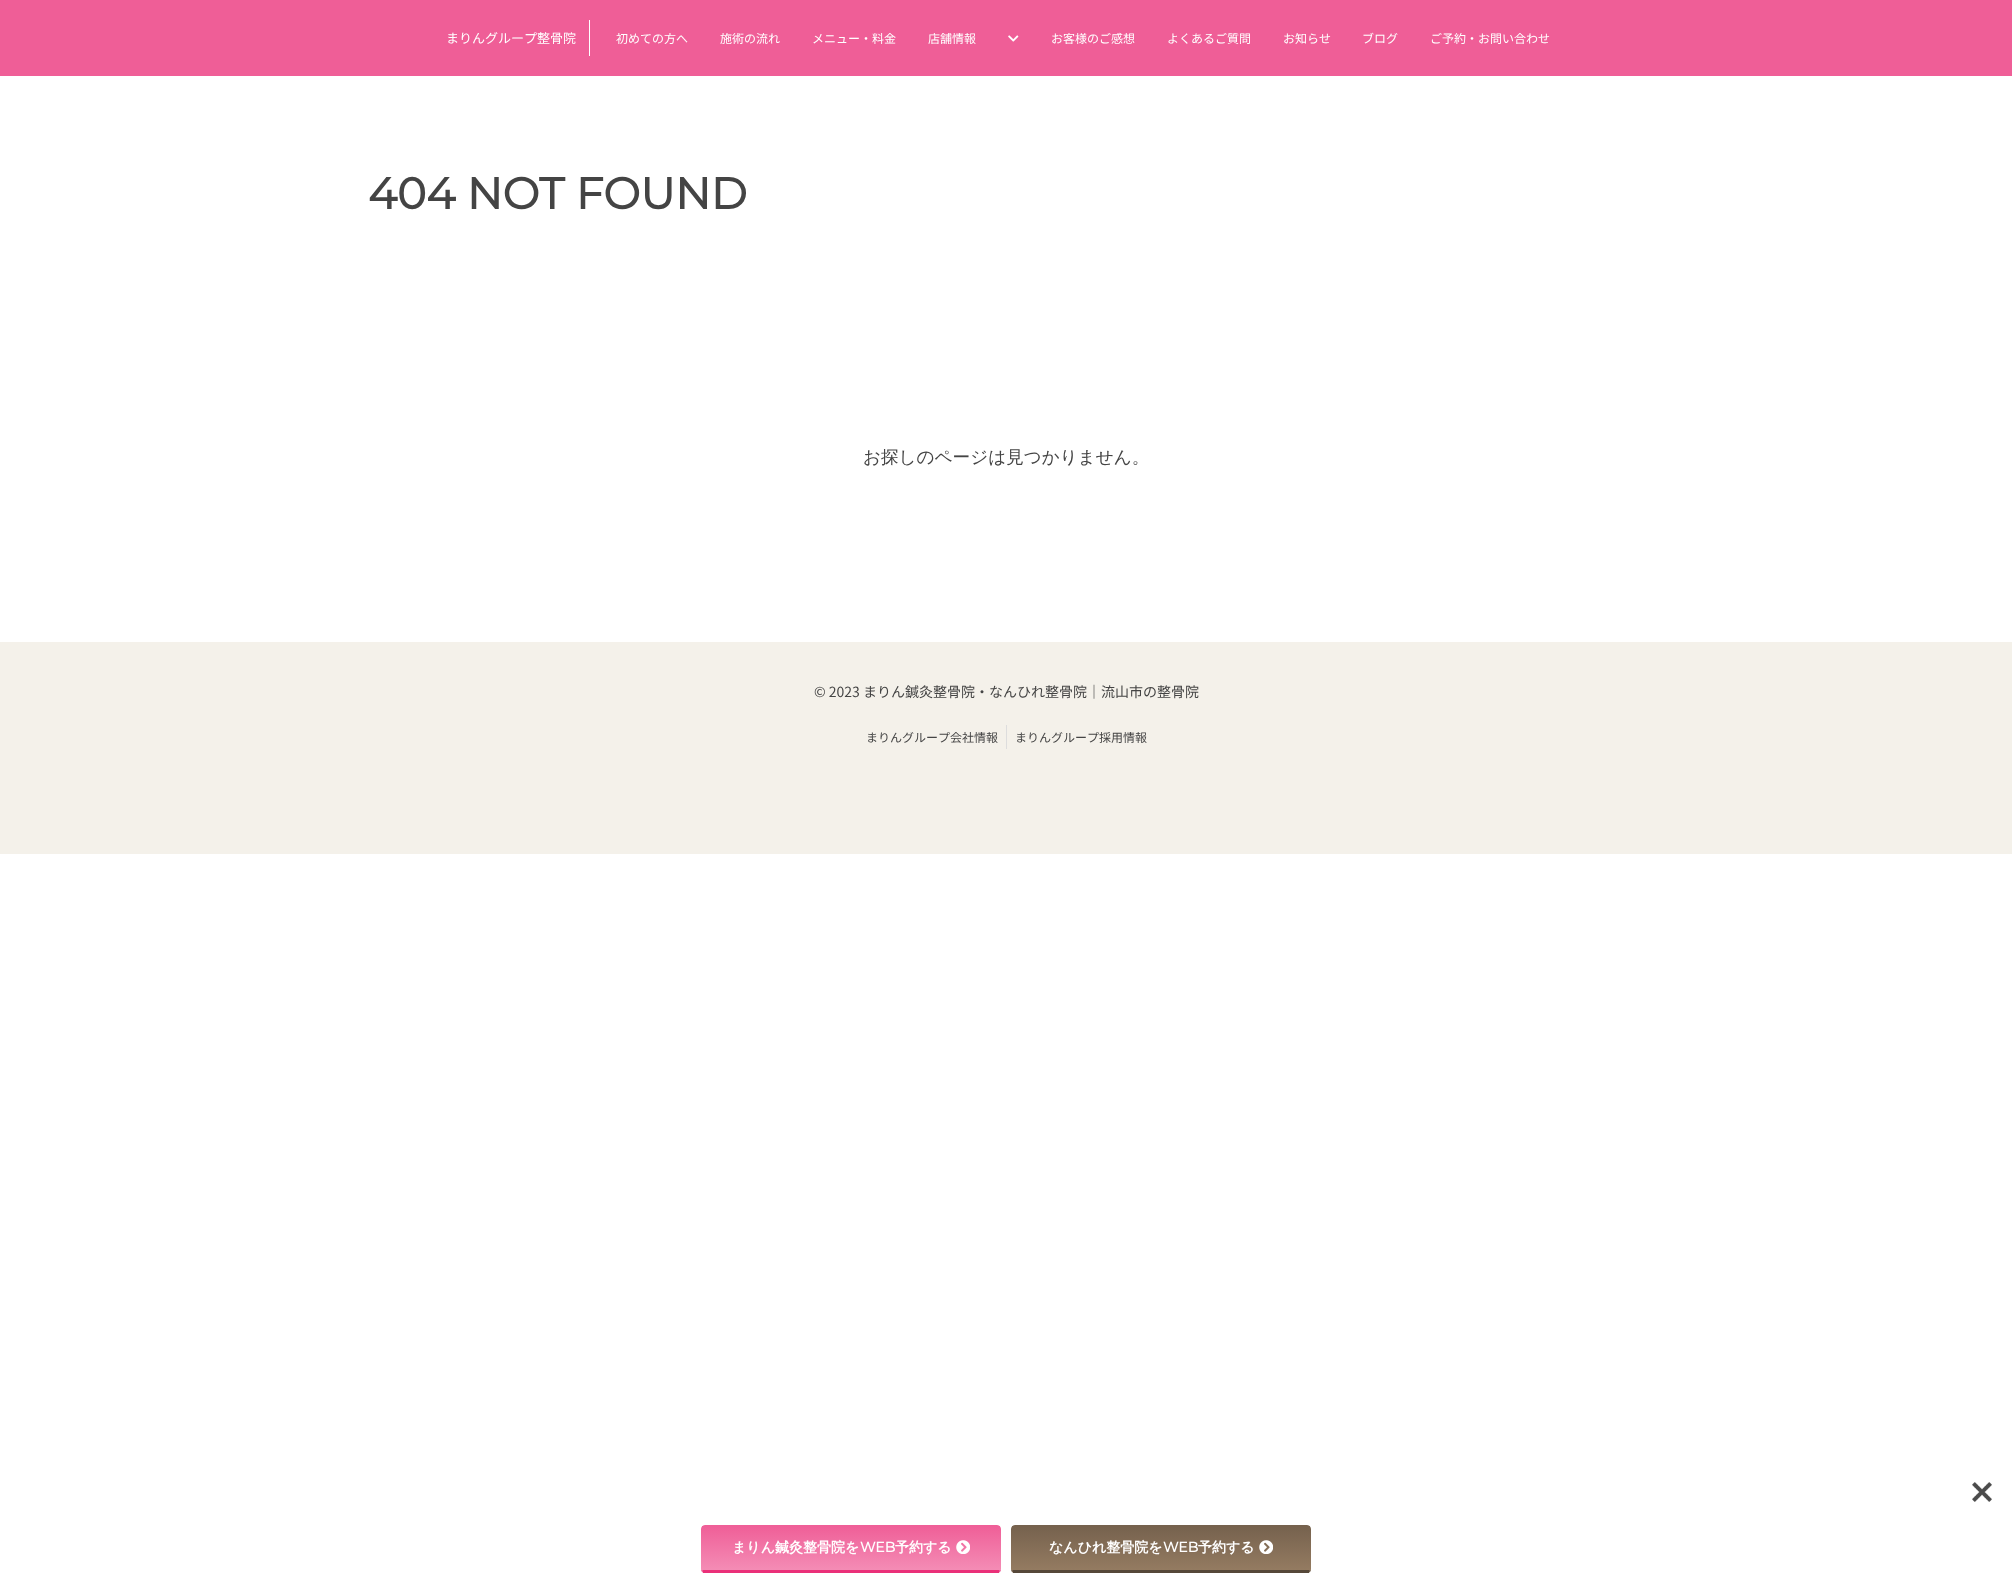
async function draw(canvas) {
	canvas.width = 2012;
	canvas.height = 1583;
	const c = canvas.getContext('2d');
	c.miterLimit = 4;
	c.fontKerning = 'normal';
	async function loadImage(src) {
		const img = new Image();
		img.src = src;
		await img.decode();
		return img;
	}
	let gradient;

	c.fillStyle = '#fff';
	c.fillRect(0, 0, 2012, 1583);
	c.fillStyle = '#ef5e97';
	c.fillRect(0, 0, 2012, 76);
	c.fillStyle = '#fff';
	c.fillRect(589, 20, 1, 36);
	c.font = '13px Noto Sans JP';
	c.fillText('まりんグループ整骨院', 446, 43);
	c.font = '12px Noto Sans JP';
	for (const [text, x, y] of [
		['初めての方へ', 616, 43],
		['施術の流れ', 720, 43],
		['メニュー・料金', 812, 43],
		['店舗情報', 928, 43],
	]) {
		c.fillText(text, x, y);
	}
	c.drawImage(await loadImage('img1.png'), 1008, 35, 11, 7);
	for (const [text, x, y] of [
		['お客様のご感想', 1051, 43],
		['よくあるご質問', 1167, 43],
		['お知らせ', 1283, 43],
		['ブログ', 1362, 43],
		['ご予約・お問い合わせ', 1430, 43],
	]) {
		c.fillText(text, x, y);
	}
	c.font = 'bold 44px Montserrat';
	c.fillStyle = '#444';
	c.fillText('404 NOT FOUND', 368, 209);
	c.font = '500 17.6px WenQuanYi Zen Hei';
	c.fillText('お探しのページは見つかりません。', 863, 463);
	c.fillStyle = '#f4f1ea';
	c.fillRect(0, 642, 2012, 212);
	c.font = '14px Noto Sans JP';
	c.fillStyle = '#444';
	c.fillText('©︎ 2023 まりん鍼灸整骨院・なんひれ整骨院｜流山市の整骨院', 814, 697);
	c.font = '12px Noto Sans JP';
	c.fillText('まりんグループ会社情報', 866, 742);
	c.fillStyle = '#ddd';
	c.fillRect(1006, 725, 1, 24);
	c.fillStyle = '#444';
	c.fillText('まりんグループ採用情報', 1015, 742);
	c.drawImage(await loadImage('img2.png'), 1972, 1482, 20, 20);
	c.save();
	c.beginPath();
	c.roundRect(701, 1525, 300, 48, 4);
	c.clip();
	gradient = c.createLinearGradient(851, 1525, 851, 1570);
	gradient.addColorStop(0, '#ef5e97');
	gradient.addColorStop(1, '#f48cb5');
	c.fillStyle = gradient;
	c.beginPath();
	c.roundRect(701, 1525, 300, 45, [4, 4, 0, 0]);
	c.fill();
	gradient = c.createLinearGradient(851, 1570, 851, 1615);
	gradient.addColorStop(0, '#ef5e97');
	gradient.addColorStop(1, '#f48cb5');
	c.fillStyle = gradient;
	c.fillRect(701, 1570, 300, 3);
	c.restore();
	c.fillStyle = '#ea3079';
	c.fillRect(703, 1570, 296, 3);
	c.font = 'bold 14px WenQuanYi Zen Hei';
	c.fillStyle = '#fff';
	c.fillText('まりん鍼灸整骨院を', 732, 1552);
	c.font = 'bold 14px Montserrat';
	c.fillText('WEB', 860, 1552);
	c.font = 'bold 14px WenQuanYi Zen Hei';
	c.fillText('予約する', 895, 1552);
	c.drawImage(await loadImage('img3.png'), 956, 1540, 14, 14);
	c.save();
	c.beginPath();
	c.roundRect(1011, 1525, 300, 48, 4);
	c.clip();
	gradient = c.createLinearGradient(1161, 1525, 1161, 1570);
	gradient.addColorStop(0, '#75614d');
	gradient.addColorStop(1, '#947b61');
	c.fillStyle = gradient;
	c.beginPath();
	c.roundRect(1011, 1525, 300, 45, [4, 4, 0, 0]);
	c.fill();
	gradient = c.createLinearGradient(1161, 1570, 1161, 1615);
	gradient.addColorStop(0, '#75614d');
	gradient.addColorStop(1, '#947b61');
	c.fillStyle = gradient;
	c.fillRect(1011, 1570, 300, 3);
	c.restore();
	c.fillStyle = '#564839';
	c.fillRect(1013, 1570, 296, 3);
	c.fillStyle = '#fff';
	c.fillText('なんひれ整骨院を', 1049, 1552);
	c.font = 'bold 14px Montserrat';
	c.fillText('WEB', 1163, 1552);
	c.font = 'bold 14px WenQuanYi Zen Hei';
	c.fillText('予約する', 1198, 1552);
	c.drawImage(await loadImage('img4.png'), 1259, 1540, 14, 14);
}

draw(document.querySelector('canvas'));
